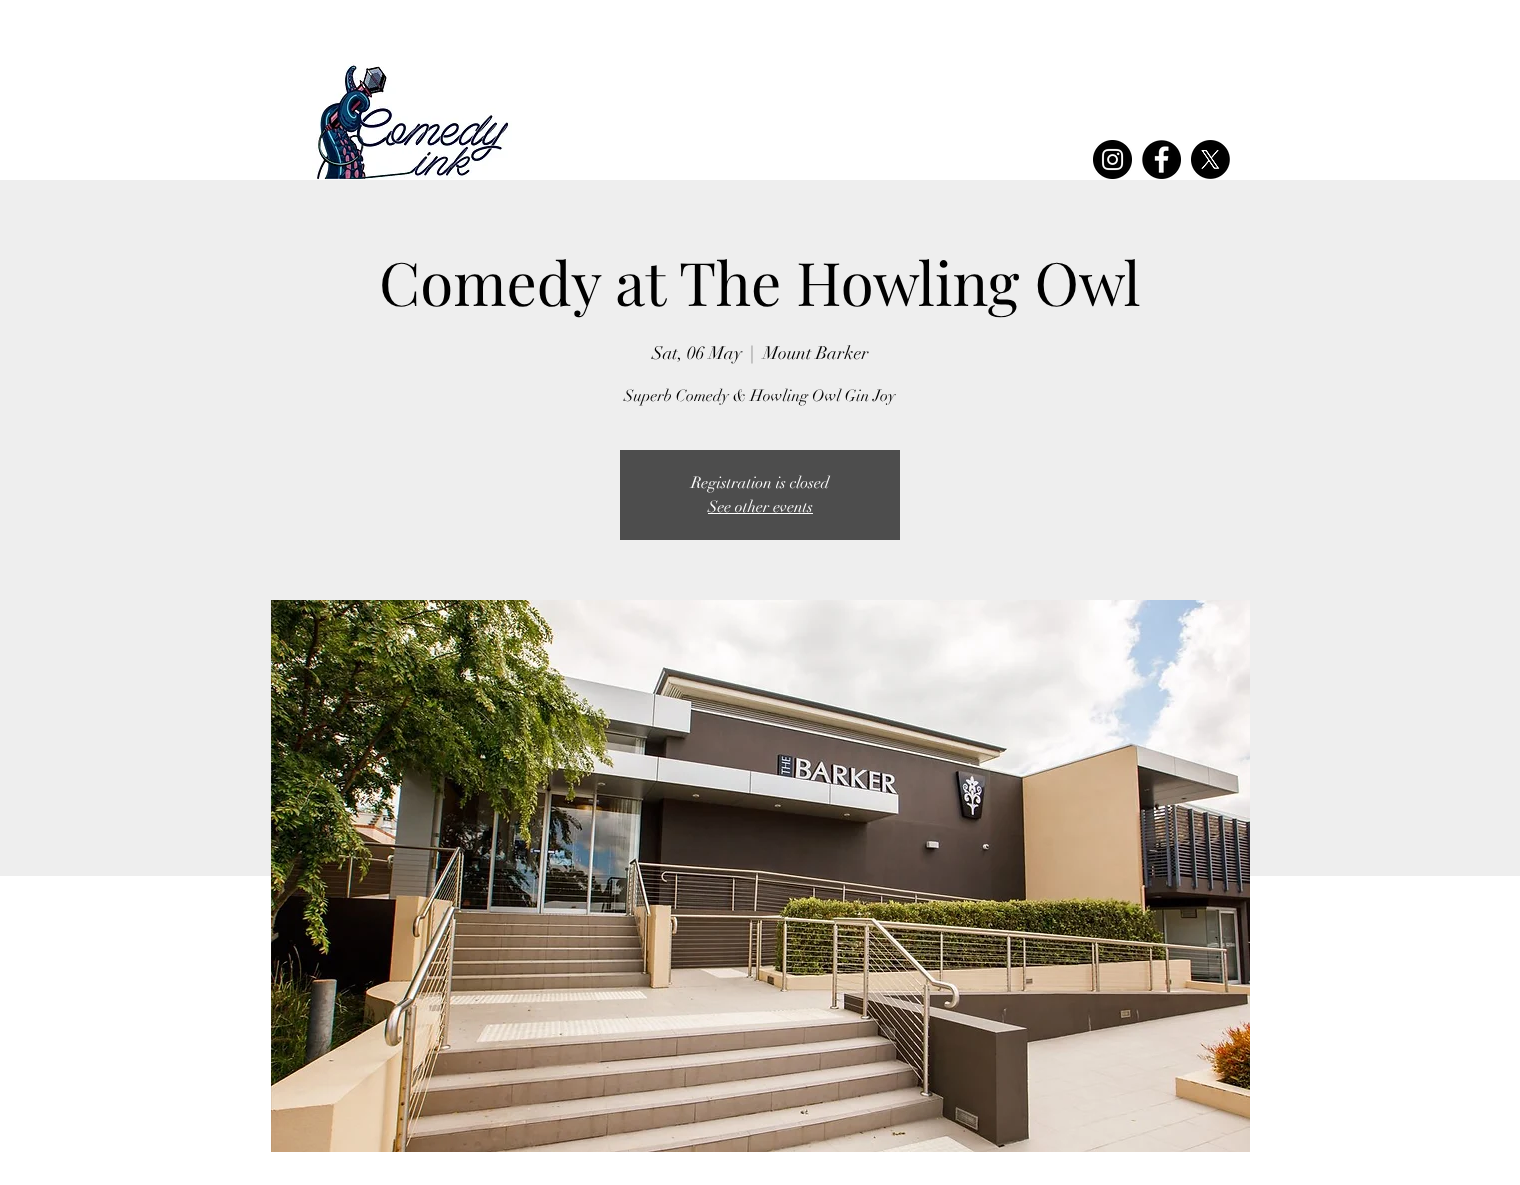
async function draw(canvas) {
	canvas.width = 1520;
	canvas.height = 1185;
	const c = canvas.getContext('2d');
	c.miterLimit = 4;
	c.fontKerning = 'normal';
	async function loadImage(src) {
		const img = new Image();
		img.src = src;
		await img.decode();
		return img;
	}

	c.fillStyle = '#fff';
	c.fillRect(0, 0, 1520, 1185);
	c.drawImage(await loadImage('img1.png'), 312, 62, 200, 117);
	c.drawImage(await loadImage('img2.png'), 1093, 140, 39, 39);
	c.drawImage(await loadImage('img3.png'), 1142, 140, 39, 39);
	c.drawImage(await loadImage('img4.png'), 1191, 140, 39, 39);
	c.fillStyle = '#eee';
	c.fillRect(0, 180, 1520, 696);
	c.font = '60px Playfair Display';
	c.fillStyle = '#000';
	c.fillText('Comedy at The Howling Owl', 379, 306);
	c.font = '18px didot';
	for (const [text, x, y] of [
		['Sat, 06 May', 652, 359],
		['|', 750, 359],
		['Mount Barker', 763, 359],
	]) {
		c.fillText(text, x, y);
	}
	c.font = '16px didot';
	c.fillText('Superb Comedy & Howling Owl Gin Joy', 624, 401);
	c.fillStyle = '#4d4d4d';
	c.fillRect(620, 450, 280, 90);
	c.fillStyle = '#fff';
	c.fillText('Registration is closed', 691, 488);
	c.fillText('See other events', 708, 512);
	c.fillRect(708, 513, 105, 1);
	c.drawImage(await loadImage('img5.png'), 271, 600, 979, 552);
}

draw(document.querySelector('canvas'));
